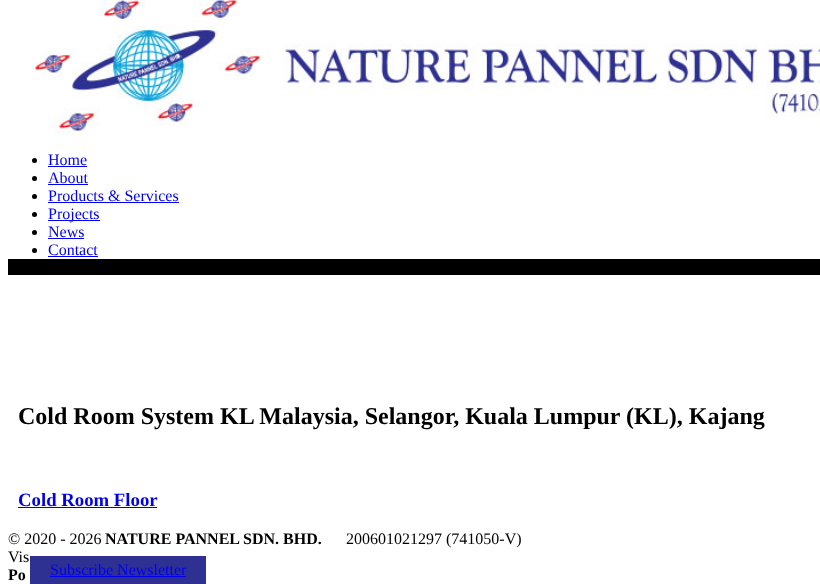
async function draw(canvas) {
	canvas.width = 820;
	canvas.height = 584;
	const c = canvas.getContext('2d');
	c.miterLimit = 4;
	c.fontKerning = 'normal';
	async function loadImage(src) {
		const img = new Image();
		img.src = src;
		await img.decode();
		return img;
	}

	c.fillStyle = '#fff';
	c.fillRect(0, 0, 820, 584);
	c.drawImage(await loadImage('img1.png'), 35, 0, 785, 135);
	c.fillStyle = '#000';
	c.beginPath();
	c.arc(34.5, 160.5, 2.5, 0, 2 * Math.PI);
	c.fill();
	c.font = '16px Liberation Serif';
	c.fillStyle = '#00e';
	c.fillText('Home', 48, 165);
	c.fillRect(48, 166, 39, 1);
	c.fillStyle = '#000';
	c.beginPath();
	c.arc(34.5, 178.5, 2.5, 0, 2 * Math.PI);
	c.fill();
	c.fillStyle = '#00e';
	c.fillText('About', 48, 183);
	c.fillRect(48, 184, 40, 1);
	c.fillStyle = '#000';
	c.beginPath();
	c.arc(34.5, 196.5, 2.5, 0, 2 * Math.PI);
	c.fill();
	c.fillStyle = '#00e';
	c.fillText('Products & Services', 48, 201);
	c.fillRect(48, 202, 131, 1);
	c.fillStyle = '#000';
	c.beginPath();
	c.arc(34.5, 214.5, 2.5, 0, 2 * Math.PI);
	c.fill();
	c.fillStyle = '#00e';
	c.fillRect(48, 220, 52, 1);
	c.fillText('Projects', 48, 219);
	c.fillStyle = '#000';
	c.beginPath();
	c.arc(34.5, 232.5, 2.5, 0, 2 * Math.PI);
	c.fill();
	c.fillStyle = '#00e';
	c.fillText('News', 48, 237);
	c.fillRect(48, 238, 36, 1);
	c.fillStyle = '#000';
	c.beginPath();
	c.arc(34.5, 250.5, 2.5, 0, 2 * Math.PI);
	c.fill();
	c.fillStyle = '#00e';
	c.fillText('Contact', 48, 255);
	c.fillRect(48, 256, 50, 1);
	c.fillStyle = '#000';
	c.fillRect(8, 259, 812, 16);
	c.font = 'bold 24px Liberation Serif';
	c.fillText('Cold Room System KL Malaysia, Selangor, Kuala Lumpur (KL), Kajang', 18, 424);
	c.font = 'bold 18.75px Liberation Serif';
	c.fillStyle = '#00e';
	c.fillText('Cold Room Floor', 18, 506);
	c.fillRect(18, 507, 139, 1);
	c.font = '16px Liberation Serif';
	c.fillStyle = '#000';
	c.fillText('© 2020 - 2026', 8, 544);
	c.font = 'bold 16px Liberation Serif';
	c.fillText('NATURE PANNEL SDN. BHD.', 105, 544);
	c.font = '16px Liberation Serif';
	c.fillText('200601021297 (741050-V)', 346, 544);
	c.fillText('Vis', 8, 562);
	c.font = 'bold 16px Liberation Serif';
	c.fillText('Po', 8, 580);
	c.fillStyle = '#2e3192';
	c.fillRect(30, 556, 176, 28);
	c.font = '16px Liberation Serif';
	c.fillStyle = '#00e';
	c.fillText('Subscribe Newsletter', 50, 575);
	c.fillRect(50, 576, 136, 1);
}

draw(document.querySelector('canvas'));
